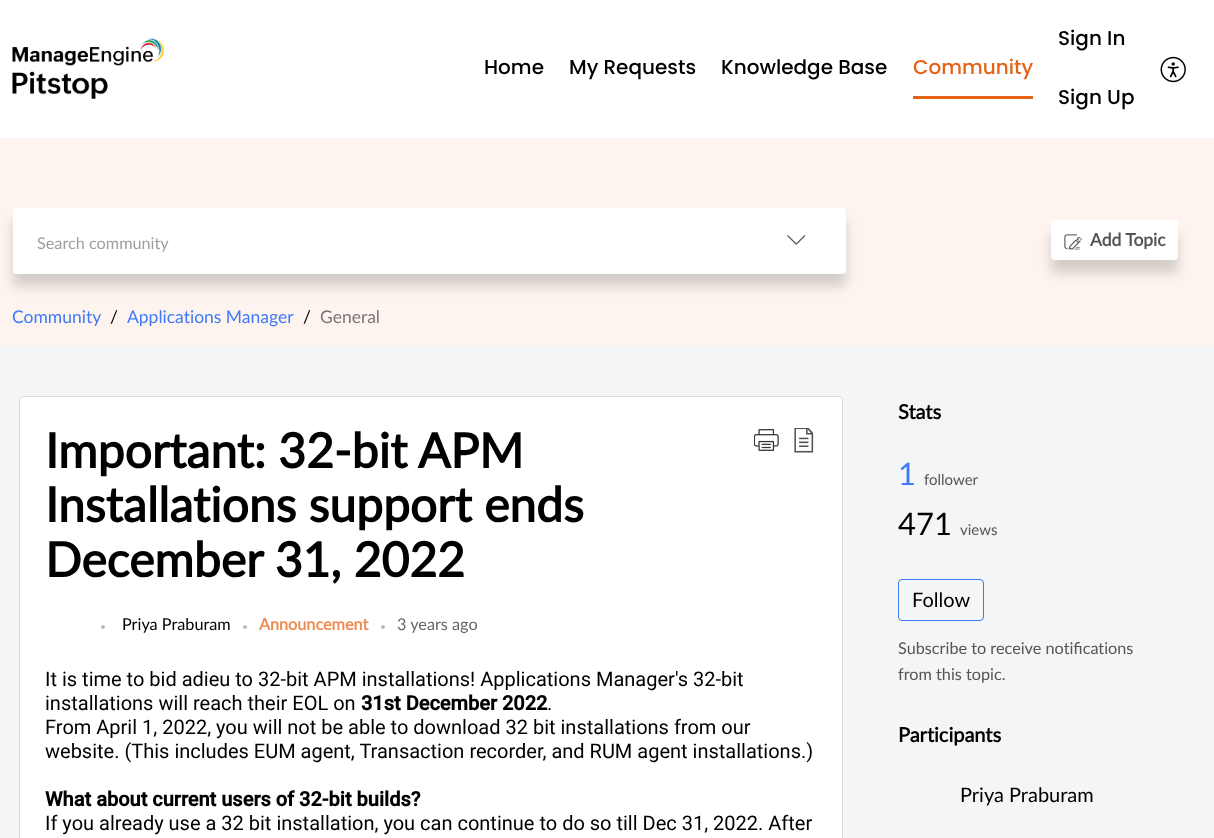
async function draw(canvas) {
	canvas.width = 1214;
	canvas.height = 838;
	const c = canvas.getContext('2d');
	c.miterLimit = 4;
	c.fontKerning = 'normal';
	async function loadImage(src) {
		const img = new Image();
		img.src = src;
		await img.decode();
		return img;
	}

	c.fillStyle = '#f3f5f7';
	c.fillRect(0, 0, 1214, 838);
	c.fillStyle = '#fff';
	c.fillRect(0, 0, 1214, 138);
	c.drawImage(await loadImage('img1.png'), 12, 38, 152, 61);
	c.font = '500 20px Poppins';
	c.fillStyle = '#000';
	for (const [text, x, y] of [
		['Home', 484, 74],
		['My Requests', 569, 74],
		['Knowledge Base', 721, 74],
	]) {
		c.fillText(text, x, y);
	}
	c.fillStyle = '#e46317';
	c.fillRect(913, 96, 120, 3);
	c.fillText('Community', 913, 74);
	c.fillStyle = '#000';
	c.fillText('Sign In', 1058, 45);
	c.fillText('Sign Up', 1058, 104);
	c.drawImage(await loadImage('img2.png'), 1160, 56, 26, 27);
	c.fillStyle = '#fdf4ef';
	c.fillRect(0, 138, 1214, 208);
	c.fillStyle = '#00000029';
	c.filter = 'blur(6px)';
	c.beginPath();
	c.rect(13, 220, 833, 66);
	c.fill();
	c.filter = 'none';
	c.fillStyle = '#fff';
	c.beginPath();
	c.roundRect(13, 208, 833, 66, 4);
	c.fill();
	c.beginPath();
	c.roundRect(13, 208, 733, 66, 4);
	c.fill();
	c.font = '16.25px Lato';
	c.fillStyle = '#9e9e9e';
	c.fillText('Search community', 37, 249);
	c.fillStyle = '#ffffff80';
	c.beginPath();
	c.roundRect(746, 208, 100, 66, [0, 4, 4, 0]);
	c.fill();
	c.drawImage(await loadImage('img3.png'), 787, 235, 19, 10);
	c.fillStyle = '#00000029';
	c.filter = 'blur(6px)';
	c.beginPath();
	c.roundRect(1051, 233, 127, 40, 4);
	c.fill();
	c.filter = 'none';
	c.fillStyle = '#fff';
	c.beginPath();
	c.roundRect(1051, 220, 127, 40, 4);
	c.fill();
	c.drawImage(await loadImage('img4.png'), 1064, 234, 18, 16);
	c.font = 'bold 17.5px Lato';
	c.fillStyle = '#555';
	c.fillText('Add Topic', 1090, 246);
	c.font = '17.5px Lato';
	c.fillStyle = '#3e7af7';
	c.fillText('Community', 12, 323);
	c.fillStyle = '#000';
	c.fillText('/', 110, 323);
	c.fillStyle = '#3e7af7';
	c.fillText('Applications Manager', 127, 323);
	c.fillStyle = '#000';
	c.fillText('/', 303, 323);
	c.fillStyle = '#777';
	c.fillText('General', 320, 323);
	c.fillStyle = '#fff';
	c.beginPath();
	c.moveTo(23, 396);
	c.lineTo(839, 396);
	c.bezierCurveTo(841, 396, 843, 398, 843, 400);
	c.lineTo(843, 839);
	c.lineTo(19, 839);
	c.lineTo(19, 400);
	c.bezierCurveTo(19, 398, 21, 396, 23, 396);
	c.closePath();
	c.fill();
	c.beginPath();
	c.roundRect(19.5, 396.5, 823, 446, 3.5);
	c.strokeStyle = '#d4dadf';
	c.stroke();
	c.font = 'bold 48px Lato';
	c.fillStyle = '#000';
	for (const [text, x, y] of [
		['Important: 32-bit APM', 45, 468],
		['Installations support ends', 45, 522],
		['December 31, 2022', 45, 577],
	]) {
		c.fillText(text, x, y);
	}
	c.drawImage(await loadImage('img5.png'), 754, 429, 25, 22);
	c.drawImage(await loadImage('img6.png'), 794, 428, 20, 25);
	c.fillStyle = '#bdbdbd';
	c.beginPath();
	c.arc(103, 627, 2, 0, 2 * Math.PI);
	c.fill();
	c.font = '16.25px Lato';
	c.fillStyle = '#000';
	c.fillText('Priya Praburam', 122, 630);
	c.fillStyle = '#bdbdbd';
	c.beginPath();
	c.arc(245, 627, 2, 0, 2 * Math.PI);
	c.fill();
	c.font = 'bold 16.25px Lato';
	c.fillStyle = '#ef8b50';
	c.fillText('Announcement', 259, 630);
	c.fillStyle = '#bdbdbd';
	c.beginPath();
	c.arc(383, 627, 2, 0, 2 * Math.PI);
	c.fill();
	c.font = '16.25px Lato';
	c.fillStyle = '#666';
	c.fillText('3 years ago', 397, 630);
	c.font = '20px Roboto';
	c.fillStyle = '#000';
	c.fillText('It is time to bid adieu to 32-bit APM installations! Applications Manager\'s 32-bit', 45, 686);
	c.fillText('installations will reach their EOL on', 45, 710);
	c.font = 'bold 20px Roboto';
	c.fillText('31st December 2022', 361, 710);
	c.font = '20px Roboto';
	for (const [text, x, y] of [
		['.', 547, 710],
		['From April 1, 2022, you will not be able to download 32 bit installations from our', 45, 734],
		['website. (This includes EUM agent, Transaction recorder, and RUM agent installations.)', 45, 758],
	]) {
		c.fillText(text, x, y);
	}
	c.font = 'bold 20px Roboto';
	c.fillText('What about current users of 32-bit builds?', 45, 806);
	c.font = '20px Roboto';
	c.fillText('If you already use a 32 bit installation, you can continue to do so till Dec 31, 2022. After', 45, 830);
	c.font = 'bold 20px Lato';
	c.fillText('Stats', 898, 419);
	c.font = '31px Lato';
	c.fillStyle = '#3e7af7';
	c.fillText('1', 898, 485);
	c.font = '15px Lato';
	c.fillStyle = '#555';
	c.fillText('follower', 924, 485);
	c.font = '31px Lato';
	c.fillStyle = '#000';
	c.fillText('471', 898, 535);
	c.font = '15px Lato';
	c.fillStyle = '#555';
	c.fillText('views', 960, 535);
	c.beginPath();
	c.roundRect(898.5, 579.5, 85, 41, 3.5);
	c.strokeStyle = '#3e7af7';
	c.stroke();
	c.font = '20px Lato';
	c.fillStyle = '#000';
	c.fillText('Follow', 912, 607);
	c.font = '16.25px Lato';
	c.fillStyle = '#555';
	c.fillText('Subscribe to receive notifications', 898, 654);
	c.fillText('from this topic.', 898, 680);
	c.font = 'bold 20px Lato';
	c.fillStyle = '#000';
	c.fillText('Participants', 898, 742);
	c.font = '20px Lato';
	c.fillText('Priya Praburam', 960, 802);
}

draw(document.querySelector('canvas'));
